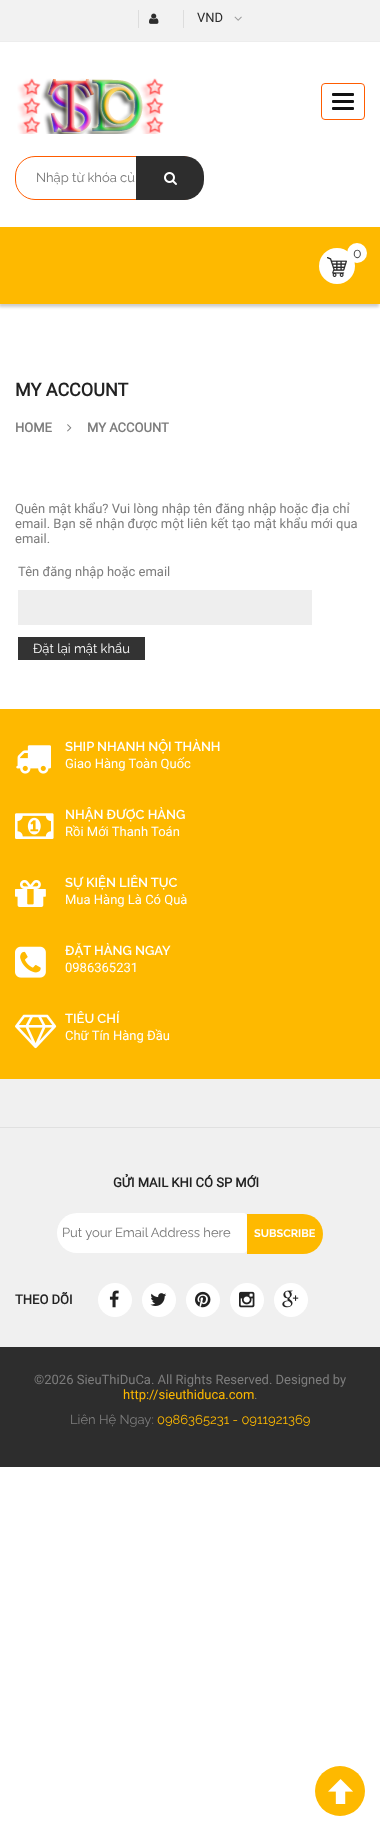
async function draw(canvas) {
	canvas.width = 380;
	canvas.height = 1831;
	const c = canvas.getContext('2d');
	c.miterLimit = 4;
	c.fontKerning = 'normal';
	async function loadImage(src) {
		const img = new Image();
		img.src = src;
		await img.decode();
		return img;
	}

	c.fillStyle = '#fff';
	c.fillRect(0, 0, 380, 1831);
	for (const [x, y, w, h, color] of [
		[0, 0, 380, 41, '#f2f2f2'],
		[0, 41, 380, 1, '#ededed'],
		[138, 10, 1, 18, '#ddd'],
	]) {
		c.fillStyle = color;
		c.fillRect(x, y, w, h);
	}
	c.drawImage(await loadImage('img1.png'), 149, 13, 10, 11);
	c.fillRect(183, 10, 1, 18);
	c.font = '13px Roboto';
	c.fillStyle = '#2d2d2d';
	c.fillText('VND', 197, 22);
	c.drawImage(await loadImage('img2.png'), 234, 16, 8, 5);
	c.drawImage(await loadImage('img3.png'), 17, 78, 147, 56);
	c.beginPath();
	c.roundRect(321.5, 83.5, 43, 36, 3.5);
	c.strokeStyle = '#ff5c00';
	c.stroke();
	c.fillStyle = '#111';
	c.beginPath();
	c.roundRect(332, 93, 22, 3, 1);
	c.fill();
	c.beginPath();
	c.roundRect(332, 100, 22, 3, 1);
	c.fill();
	c.beginPath();
	c.roundRect(332, 107, 22, 3, 1);
	c.fill();
	c.fillStyle = '#00000033';
	c.filter = 'blur(1.5px)';
	c.beginPath();
	c.rect(-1, 230, 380, 77);
	c.fill();
	c.filter = 'none';
	c.fillStyle = '#feb900';
	c.fillRect(0, 227, 380, 77);
	c.beginPath();
	c.roundRect(15.5, 156.5, 186, 43, 19.5);
	c.stroke();
	c.font = '13px Raleway';
	c.fillStyle = '#757575';
	c.fillText('Nhập từ khóa củ', 36, 182);
	c.fillStyle = '#2d2d2d';
	c.beginPath();
	c.roundRect(136, 156, 68, 44, [0, 20, 20, 0]);
	c.fill();
	c.drawImage(await loadImage('img4.png'), 164, 172, 13, 13);
	c.fillStyle = '#fff';
	c.beginPath();
	c.arc(337, 266, 18, 0, 2 * Math.PI);
	c.fill();
	c.drawImage(await loadImage('img5.png'), 327, 257, 20, 20);
	c.beginPath();
	c.arc(357, 253, 10, 0, 2 * Math.PI);
	c.fill();
	c.font = '14px Raleway';
	c.fillStyle = '#464646';
	c.fillText('0', 353, 258);
	c.font = 'bold 18px Roboto';
	c.fillStyle = '#222';
	c.fillText('MY ACCOUNT', 15, 396);
	c.font = 'bold 13px Roboto';
	c.fillStyle = '#7d7d7d';
	c.fillText('HOME', 15, 432);
	c.drawImage(await loadImage('img6.png'), 67, 424, 5, 8);
	c.fillText('MY ACCOUNT', 87, 432);
	c.font = '13px Roboto';
	for (const [text, x, y] of [
		['Quên mật khẩu? Vui lòng nhập tên đăng nhập hoặc địa chỉ', 15, 513],
		['email. Bạn sẽ nhận được một liên kết tạo mật khẩu mới qua', 15, 528],
		['email.', 15, 543],
		['Tên đăng nhập hoặc email', 18, 576],
	]) {
		c.fillText(text, x, y);
	}
	c.fillStyle = '#eee';
	c.fillRect(18, 590, 294, 35);
	c.fillStyle = '#333';
	c.fillRect(18, 637, 127, 23);
	c.font = '13px Raleway';
	c.fillStyle = '#fff';
	c.fillText('Đặt lại mật khẩu', 33, 653);
	c.fillStyle = '#feb900';
	c.fillRect(0, 709, 380, 370);
	c.drawImage(await loadImage('img7.png'), 16, 745, 35, 29);
	c.font = '600 13px Raleway';
	c.fillStyle = '#fff';
	c.fillText('SHIP NHANH NỘI THÀNH', 65, 751);
	c.font = '13px Roboto';
	c.fillText('Giao Hàng Toàn Quốc', 65, 768);
	c.drawImage(await loadImage('img8.png'), 15, 813, 39, 26);
	c.font = '600 13px Raleway';
	c.fillText('NHẬN ĐƯỢC HÀNG', 65, 819);
	c.font = '13px Roboto';
	c.fillText('Rồi Mới Thanh Toán', 65, 836);
	c.drawImage(await loadImage('img9.png'), 15, 880, 31, 27);
	c.font = '600 13px Raleway';
	c.fillText('SỰ KIỆN LIÊN TỤC', 65, 887);
	c.font = '13px Roboto';
	c.fillText('Mua Hàng Là Có Quà', 65, 904);
	c.drawImage(await loadImage('img10.png'), 15, 946, 31, 32);
	c.font = '600 13px Raleway';
	c.fillText('ĐẶT HÀNG NGAY', 65, 955);
	c.font = '13px Roboto';
	c.fillText('0986365231', 65, 972);
	c.drawImage(await loadImage('img11.png'), 15, 1014, 42, 35);
	c.font = '600 13px Raleway';
	c.fillText('TIÊU CHÍ', 65, 1023);
	c.font = '13px Roboto';
	c.fillText('Chữ Tín Hàng Đầu', 65, 1040);
	for (const [x, y, w, h, color] of [
		[0, 1079, 380, 48, '#f0f0f0'],
		[0, 1128, 380, 219, '#f0f0f0'],
		[0, 1127, 380, 1, '#e0e0e0'],
	]) {
		c.fillStyle = color;
		c.fillRect(x, y, w, h);
	}
	c.font = 'bold 13px Roboto';
	c.fillStyle = '#222';
	c.fillText('GỬI MAIL KHI CÓ SP MỚI', 113, 1187);
	c.fillStyle = '#fff';
	c.beginPath();
	c.roundRect(57, 1213, 190, 40, [20, 4, 4, 20]);
	c.fill();
	c.font = '13px Raleway';
	c.fillStyle = '#757575';
	c.fillText('Put your Email Address here', 62, 1237);
	c.fillStyle = '#feb900';
	c.beginPath();
	c.roundRect(247, 1214, 76, 40, [0, 20, 20, 0]);
	c.fill();
	c.font = 'bold 11px Raleway';
	c.fillStyle = '#fff';
	c.fillText('SUBSCRIBE', 254, 1237);
	c.font = 'bold 13px Roboto';
	c.fillStyle = '#222';
	c.fillText('THEO DÕI', 15, 1304);
	c.fillStyle = '#fff';
	c.beginPath();
	c.arc(115, 1300, 17, 0, 2 * Math.PI);
	c.fill();
	c.drawImage(await loadImage('img12.png'), 109, 1290, 10, 18);
	c.beginPath();
	c.arc(159, 1300, 17, 0, 2 * Math.PI);
	c.fill();
	c.drawImage(await loadImage('img13.png'), 150, 1293, 17, 13);
	c.beginPath();
	c.arc(203, 1300, 17, 0, 2 * Math.PI);
	c.fill();
	c.drawImage(await loadImage('img14.png'), 195, 1291, 16, 17);
	c.beginPath();
	c.arc(247, 1300, 17, 0, 2 * Math.PI);
	c.fill();
	c.drawImage(await loadImage('img15.png'), 239, 1291, 16, 17);
	c.beginPath();
	c.arc(291, 1300, 17, 0, 2 * Math.PI);
	c.fill();
	c.drawImage(await loadImage('img16.png'), 282, 1290, 17, 18);
	c.fillStyle = '#2d2d2d';
	c.fillRect(0, 1347, 380, 120);
	c.font = '13px Roboto';
	c.fillStyle = '#7d7d7d';
	c.fillText('©2026 SieuThiDuCa. All Rights Reserved. Designed by', 34, 1384);
	c.fillStyle = '#feb900';
	c.fillText('http://sieuthiduca.com', 123, 1399);
	c.fillStyle = '#7d7d7d';
	c.fillText('.', 254, 1399);
	c.font = '13px Raleway';
	c.fillText('Liên Hệ Ngay:', 70, 1424);
	c.fillStyle = '#feb900';
	c.fillText('0986365231 - 0911921369', 157, 1424);
	c.beginPath();
	c.arc(340, 1791, 25, 0, 2 * Math.PI);
	c.fill();
	c.drawImage(await loadImage('img17.png'), 328, 1779, 25, 25);
}

draw(document.querySelector('canvas'));
